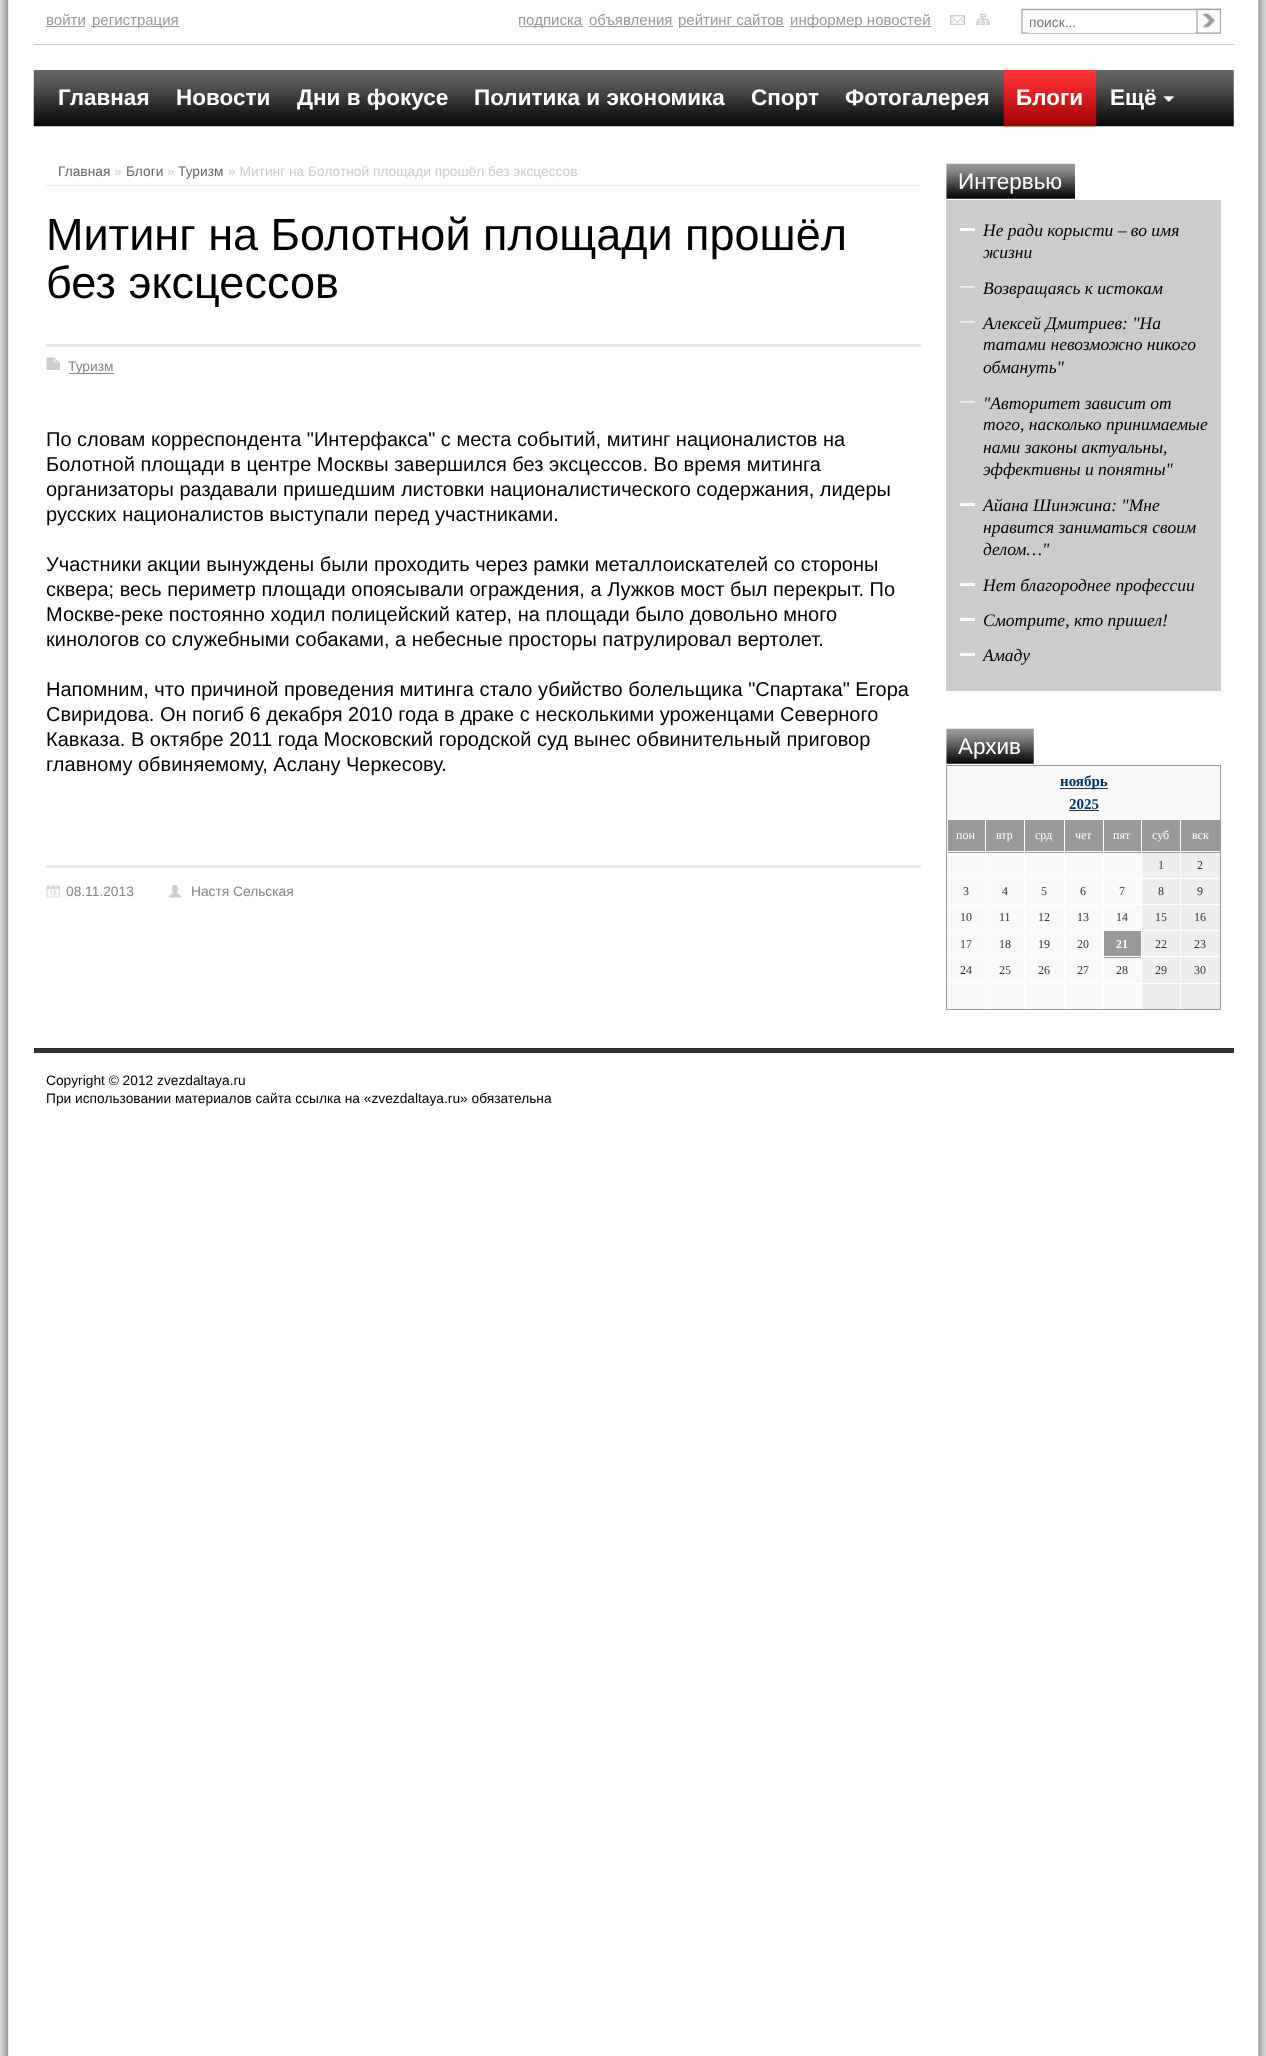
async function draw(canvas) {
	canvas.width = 1266;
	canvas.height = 2056;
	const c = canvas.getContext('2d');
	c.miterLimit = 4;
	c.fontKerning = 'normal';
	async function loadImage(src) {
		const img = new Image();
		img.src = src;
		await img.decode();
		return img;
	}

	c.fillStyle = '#ebeff0';
	c.fillRect(0, 0, 1266, 2056);
	c.drawImage(await loadImage('img1.png'), 0, 0, 1266, 2056);
	c.fillStyle = '#ccc';
	c.fillRect(34, 44, 1200, 1);
	c.font = '15px Liberation Sans';
	c.fillStyle = '#999';
	c.fillText('войти', 46, 25);
	c.fillRect(46, 26, 39, 1);
	c.fillRect(91, 26, 88, 1);
	c.fillText('регистрация', 92, 25);
	c.fillRect(519, 26, 64, 1);
	c.fillText('подписка', 518, 25);
	c.fillText('объявления', 589, 25);
	c.fillRect(589, 26, 84, 1);
	c.fillRect(679, 26, 105, 1);
	c.fillText('рейтинг сайтов', 678, 25);
	c.fillRect(790, 26, 141, 1);
	c.fillText('информер новостей', 790, 25);
	c.drawImage(await loadImage('img2.png'), 950, 15, 15, 10);
	c.drawImage(await loadImage('img3.png'), 976, 13, 14, 12);
	c.drawImage(await loadImage('img4.png'), 1021, 8, 201, 26);
	c.fillStyle = '#fff';
	c.fillRect(1028, 32, 167, 1);
	c.font = '13.75px Liberation Sans';
	c.fillStyle = '#757575';
	c.fillText('поиск...', 1029, 27);
	c.drawImage(await loadImage('img5.png'), 1196, 8, 25, 26);
	c.drawImage(await loadImage('img6.png'), 33, 70, 1201, 57);
	c.font = 'bold 22.5px Liberation Sans';
	c.fillStyle = '#fff';
	for (const [text, x, y] of [
		['Главная', 58, 105],
		['Новости', 176, 105],
		['Дни в фокусе', 297, 105],
		['Политика и экономика', 474, 105],
		['Спорт', 751, 105],
		['Фотогалерея', 845, 105],
	]) {
		c.fillText(text, x, y);
	}
	c.drawImage(await loadImage('img7.png'), 1003, 70, 94, 57);
	c.fillText('Блоги', 1016, 105);
	c.fillText('Ещё', 1110, 105);
	c.drawImage(await loadImage('img8.png'), 1163, 96, 11, 6);
	c.fillStyle = '#eaeaea';
	c.fillRect(46, 185, 875, 1);
	c.font = '13.75px Liberation Sans';
	c.fillStyle = '#666';
	c.fillText('Главная', 58, 176);
	c.fillStyle = '#ccc';
	c.fillText('»', 114, 176);
	c.fillStyle = '#666';
	c.fillText('Блоги', 126, 176);
	c.fillStyle = '#ccc';
	c.fillText('»', 167, 176);
	c.fillStyle = '#666';
	c.fillText('Туризм', 178, 176);
	c.fillStyle = '#ccc';
	c.fillText('» Митинг на Болотной площади прошёл без эксцессов', 228, 176);
	c.font = '45px Liberation Sans';
	c.fillStyle = '#000';
	c.fillText('Митинг на Болотной площади прошёл', 46, 250);
	c.fillText('без эксцессов', 46, 298);
	c.fillStyle = '#e9e9e9';
	c.fillRect(46, 344, 875, 3);
	c.drawImage(await loadImage('img9.png'), 46, 357, 14, 13);
	c.fillStyle = '#858585';
	c.fillRect(69, 373, 45, 1);
	c.font = '13.75px Liberation Sans';
	c.fillText('Туризм', 68, 371);
	c.font = '20px Liberation Sans';
	c.fillStyle = '#000';
	for (const [text, x, y] of [
		['По словам корреспондента "Интерфакса" с места событий, митинг националистов на', 46, 446],
		['Болотной площади в центре Москвы завершился без эксцессов. Во время митинга', 46, 471],
		['организаторы раздавали пришедшим листовки националистического содержания, лидеры', 46, 496],
		['русских националистов выступали перед участниками.', 46, 521],
		['Участники акции вынуждены были проходить через рамки металлоискателей со стороны', 46, 571],
		['сквера; весь периметр площади опоясывали ограждения, а Лужков мост был перекрыт. По', 46, 596],
		['Москве-реке постоянно ходил полицейский катер, на площади было довольно много', 46, 621],
		['кинологов со служебными собаками, а небесные просторы патрулировал вертолет.', 46, 646],
		['Напомним, что причиной проведения митинга стало убийство болельщика "Спартака" Егора', 46, 696],
		['Свиридова. Он погиб 6 декабря 2010 года в драке с несколькими уроженцами Северного', 46, 721],
		['Кавказа. В октябре 2011 года Московский городской суд вынес обвинительный приговор', 46, 746],
		['главному обвиняемому, Аслану Черкесову.', 46, 771],
	]) {
		c.fillText(text, x, y);
	}
	c.fillStyle = '#e9e9e9';
	c.fillRect(46, 865, 875, 3);
	c.drawImage(await loadImage('img10.png'), 46, 885, 14, 13);
	c.font = '13.75px Liberation Sans';
	c.fillStyle = '#858585';
	c.fillText('08.11.2013', 66, 896);
	c.drawImage(await loadImage('img11.png'), 168, 885, 14, 13);
	c.fillText('Настя Сельская', 191, 896);
	c.drawImage(await loadImage('img12.png'), 946, 163, 129, 36);
	c.font = '22.5px Liberation Sans';
	c.fillStyle = '#fff';
	c.fillText('Интервью', 958, 189);
	c.fillStyle = '#ccc';
	c.fillRect(946, 200, 275, 491);
	c.fillStyle = '#fcfcfc';
	c.fillRect(960, 228, 15, 3);
	c.font = 'italic 17.5px Liberation Serif';
	c.fillStyle = '#000';
	c.fillText('Не ради корысти – во имя', 983, 236);
	c.fillText('жизни', 983, 258);
	c.drawImage(await loadImage('img13.png'), 960, 286, 15, 2);
	c.fillText('Возвращаясь к истокам', 983, 294);
	c.drawImage(await loadImage('img13.png'), 960, 321, 15, 2);
	for (const [text, x, y] of [
		['Алексей Дмитриев: "На', 983, 329],
		['татами невозможно никого', 983, 350],
		['обмануть"', 983, 373],
	]) {
		c.fillText(text, x, y);
	}
	c.drawImage(await loadImage('img13.png'), 960, 401, 15, 2);
	for (const [text, x, y] of [
		['"Авторитет зависит от', 983, 409],
		['того, насколько принимаемые', 983, 430],
		['нами законы актуальны,', 983, 453],
		['эффективны и понятны"', 983, 475],
	]) {
		c.fillText(text, x, y);
	}
	c.fillStyle = '#fcfcfc';
	c.fillRect(960, 503, 15, 3);
	c.fillStyle = '#000';
	for (const [text, x, y] of [
		['Айана Шинжина: "Мне', 983, 511],
		['нравится заниматься своим', 983, 533],
		['делом…"', 983, 555],
	]) {
		c.fillText(text, x, y);
	}
	c.fillStyle = '#fcfcfc';
	c.fillRect(960, 583, 15, 3);
	c.fillStyle = '#000';
	c.fillText('Нет благороднее профессии', 983, 591);
	c.fillStyle = '#fcfcfc';
	c.fillRect(960, 618, 15, 3);
	c.fillStyle = '#000';
	c.fillText('Смотрите, кто пришел!', 983, 626);
	c.fillStyle = '#fcfcfc';
	c.fillRect(960, 653, 15, 3);
	c.fillStyle = '#000';
	c.fillText('Амаду', 983, 661);
	c.drawImage(await loadImage('img14.png'), 946, 728, 88, 36);
	c.font = '22.5px Liberation Sans';
	c.fillStyle = '#fff';
	c.fillText('Архив', 958, 754);
	for (const [x, y, w, h, color] of [
		[946, 765, 275, 1, '#999'],
		[1220, 765, 1, 245, '#999'],
		[946, 1009, 275, 1, '#999'],
		[948, 820, 37, 33, '#999'],
		[986, 820, 38, 33, '#999'],
		[1025, 820, 39, 33, '#999'],
		[1065, 820, 38, 33, '#999'],
		[1104, 820, 37, 33, '#999'],
		[1142, 820, 38, 33, '#999'],
		[1181, 820, 39, 33, '#999'],
		[946, 851, 274, 1, '#fff'],
		[948, 931, 37, 52, '#f9f9f9'],
		[986, 931, 38, 52, '#f9f9f9'],
		[1025, 931, 39, 52, '#f9f9f9'],
		[1065, 931, 38, 52, '#f9f9f9'],
		[1104, 931, 37, 27, '#999'],
		[1142, 931, 38, 52, '#eee'],
		[1181, 931, 39, 52, '#eee'],
		[946, 956, 274, 1, '#fff'],
		[946, 765, 1, 245, '#999'],
		[947, 766, 273, 53, '#f9f9f9'],
		[1060, 788, 48, 1, '#333'],
	]) {
		c.fillStyle = color;
		c.fillRect(x, y, w, h);
	}
	c.font = 'bold 15px Liberation Serif';
	c.fillStyle = '#036';
	c.fillText('ноябрь', 1060, 786);
	c.fillText('2025', 1069, 809);
	c.fillStyle = '#333';
	c.fillRect(1069, 810, 30, 1);
	c.font = '12px Liberation Serif';
	c.fillStyle = '#fff';
	for (const [text, x, y] of [
		['пон', 956, 839],
		['втр', 996, 839],
		['срд', 1035, 839],
		['чет', 1075, 839],
		['пят', 1113, 839],
		['суб', 1152, 839],
		['вск', 1192, 839],
	]) {
		c.fillText(text, x, y);
	}
	for (const [x, y, w, h, color] of [
		[948, 853, 37, 25, '#f9f9f9'],
		[986, 853, 38, 25, '#f9f9f9'],
		[1025, 853, 39, 25, '#f9f9f9'],
		[1065, 853, 38, 25, '#f9f9f9'],
		[1104, 853, 37, 25, '#f9f9f9'],
		[1142, 853, 38, 25, '#eee'],
	]) {
		c.fillStyle = color;
		c.fillRect(x, y, w, h);
	}
	c.fillStyle = '#333';
	c.fillText('1', 1158, 869);
	c.fillStyle = '#eee';
	c.fillRect(1181, 853, 39, 25);
	c.fillStyle = '#333';
	c.fillText('2', 1197, 869);
	c.fillStyle = '#f9f9f9';
	c.fillRect(948, 879, 37, 25);
	c.fillStyle = '#333';
	c.fillText('3', 963, 895);
	c.fillStyle = '#f9f9f9';
	c.fillRect(986, 879, 38, 25);
	c.fillStyle = '#333';
	c.fillText('4', 1002, 895);
	c.fillStyle = '#f9f9f9';
	c.fillRect(1025, 879, 39, 25);
	c.fillStyle = '#333';
	c.fillText('5', 1041, 895);
	c.fillStyle = '#f9f9f9';
	c.fillRect(1065, 879, 38, 25);
	c.fillStyle = '#333';
	c.fillText('6', 1080, 895);
	c.fillStyle = '#f9f9f9';
	c.fillRect(1104, 879, 37, 25);
	c.fillStyle = '#333';
	c.fillText('7', 1119, 895);
	c.fillStyle = '#eee';
	c.fillRect(1142, 879, 38, 25);
	c.fillStyle = '#333';
	c.fillText('8', 1158, 895);
	c.fillStyle = '#eee';
	c.fillRect(1181, 879, 39, 25);
	c.fillStyle = '#333';
	c.fillText('9', 1197, 895);
	c.fillStyle = '#f9f9f9';
	c.fillRect(948, 905, 37, 25);
	c.fillStyle = '#333';
	c.fillText('10', 960, 921);
	c.fillStyle = '#f9f9f9';
	c.fillRect(986, 905, 38, 25);
	c.fillStyle = '#333';
	c.fillText('11', 999, 921);
	c.fillStyle = '#f9f9f9';
	c.fillRect(1025, 905, 39, 25);
	c.fillStyle = '#333';
	c.fillText('12', 1038, 921);
	c.fillStyle = '#f9f9f9';
	c.fillRect(1065, 905, 38, 25);
	c.fillStyle = '#333';
	c.fillText('13', 1077, 921);
	c.fillStyle = '#f9f9f9';
	c.fillRect(1104, 905, 37, 25);
	c.fillStyle = '#333';
	c.fillText('14', 1116, 921);
	c.fillStyle = '#eee';
	c.fillRect(1142, 905, 38, 25);
	c.fillStyle = '#333';
	c.fillText('15', 1155, 921);
	c.fillStyle = '#eee';
	c.fillRect(1181, 905, 39, 25);
	c.fillStyle = '#333';
	for (const [text, x, y] of [
		['16', 1194, 921],
		['17', 960, 948],
		['18', 999, 948],
		['19', 1038, 948],
		['20', 1077, 948],
	]) {
		c.fillText(text, x, y);
	}
	c.font = 'bold 12px Liberation Serif';
	c.fillStyle = '#fff';
	c.fillText('21', 1116, 948);
	c.font = '12px Liberation Serif';
	c.fillStyle = '#333';
	for (const [text, x, y] of [
		['22', 1155, 948],
		['23', 1194, 948],
		['24', 960, 974],
		['25', 999, 974],
		['26', 1038, 974],
		['27', 1077, 974],
	]) {
		c.fillText(text, x, y);
	}
	c.fillStyle = '#f9f9f9';
	c.fillRect(1104, 958, 37, 25);
	c.fillStyle = '#333';
	for (const [text, x, y] of [
		['28', 1116, 974],
		['29', 1155, 974],
		['30', 1194, 974],
	]) {
		c.fillText(text, x, y);
	}
	for (const [x, y, w, h, color] of [
		[948, 984, 37, 25, '#f9f9f9'],
		[986, 984, 38, 25, '#f9f9f9'],
		[1025, 984, 39, 25, '#f9f9f9'],
		[1065, 984, 38, 25, '#f9f9f9'],
		[1104, 984, 37, 25, '#f9f9f9'],
		[1142, 984, 38, 25, '#eee'],
		[1181, 984, 39, 25, '#eee'],
		[34, 1048, 1200, 5, '#333'],
	]) {
		c.fillStyle = color;
		c.fillRect(x, y, w, h);
	}
	c.font = '13.75px Liberation Sans';
	c.fillStyle = '#000';
	c.fillText('Copyright © 2012 zvezdaltaya.ru', 46, 1085);
	c.fillText('При использовании материалов сайта ссылка на «zvezdaltaya.ru» обязательна', 46, 1103);
}

draw(document.querySelector('canvas'));
